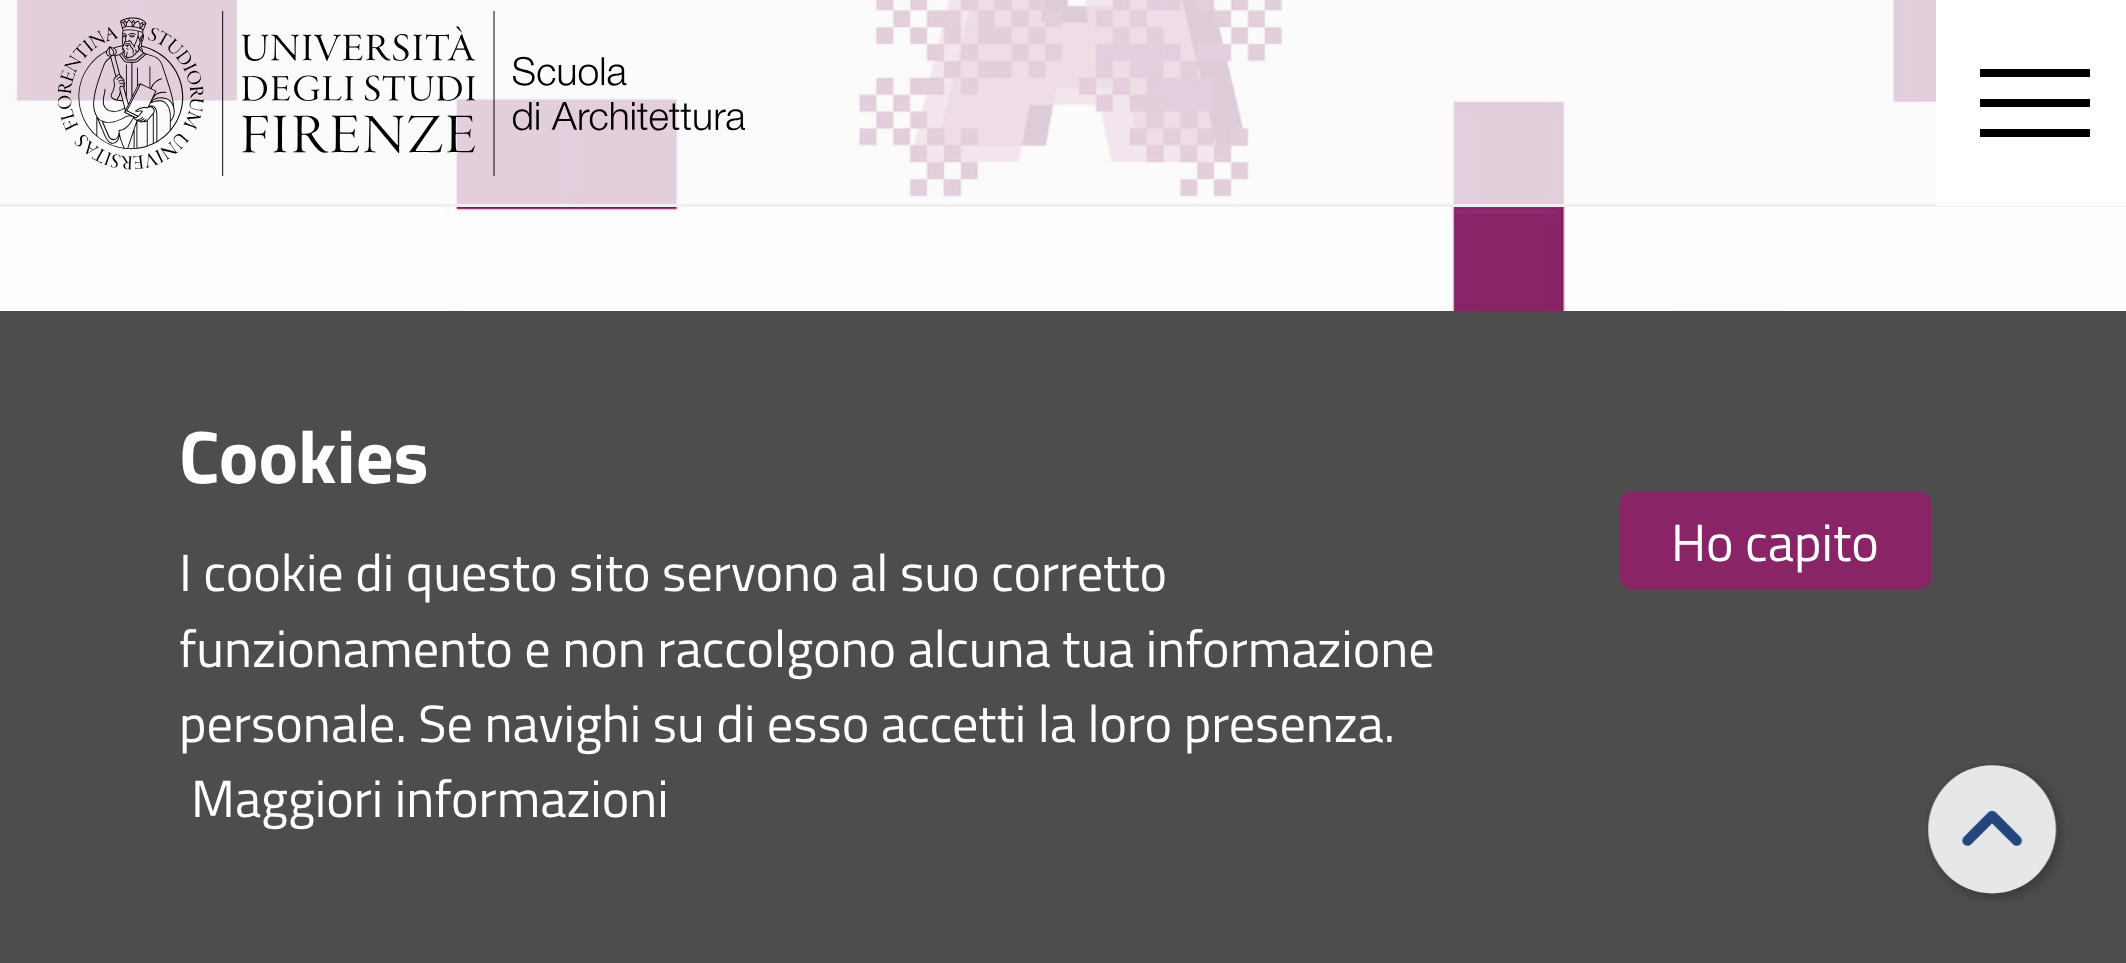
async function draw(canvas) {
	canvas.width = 2126;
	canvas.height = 963;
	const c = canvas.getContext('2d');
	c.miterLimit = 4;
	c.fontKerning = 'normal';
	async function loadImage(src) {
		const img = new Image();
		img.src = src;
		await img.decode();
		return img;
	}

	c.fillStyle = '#fff';
	c.fillRect(0, 0, 2126, 963);
	c.drawImage(await loadImage('img1.png'), 0, 0, 2126, 311);
	c.fillStyle = '#fafafacc';
	c.fillRect(0, 0, 1936, 204);
	c.fillStyle = '#f0f0f0';
	c.fillRect(0, 204, 2126, 3);
	c.drawImage(await loadImage('img2.png'), 58, 11, 687, 165);
	for (const [x, y, w, h, color] of [
		[1936, 0, 190, 206, '#fff'],
		[1980, 69, 110, 8, '#000'],
		[1980, 99, 110, 8, '#000'],
		[1980, 129, 110, 8, '#000'],
		[0, 311, 2126, 652, '#4d4d4d'],
	]) {
		c.fillStyle = color;
		c.fillRect(x, y, w, h);
	}
	c.font = 'bold 74.5px Titillium Web';
	c.fillStyle = '#fff';
	c.fillText('Cookies', 179, 483);
	c.font = '52.25px Titillium Web';
	for (const [text, x, y] of [
		['I cookie di questo sito servono al suo corretto', 179, 591],
		['funzionamento e non raccolgono alcuna tua informazione', 179, 667],
		['personale. Se navighi su di esso accetti la loro presenza.', 179, 742],
		['Maggiori informazioni', 191, 817],
	]) {
		c.fillText(text, x, y);
	}
	c.fillStyle = '#892466';
	c.beginPath();
	c.roundRect(1620, 492, 311, 97, 11);
	c.fill();
	c.fillStyle = '#fff';
	c.fillText('Ho capito', 1671, 561);
	c.drawImage(await loadImage('img3.png'), 1926, 763, 139, 139);
}

draw(document.querySelector('canvas'));
